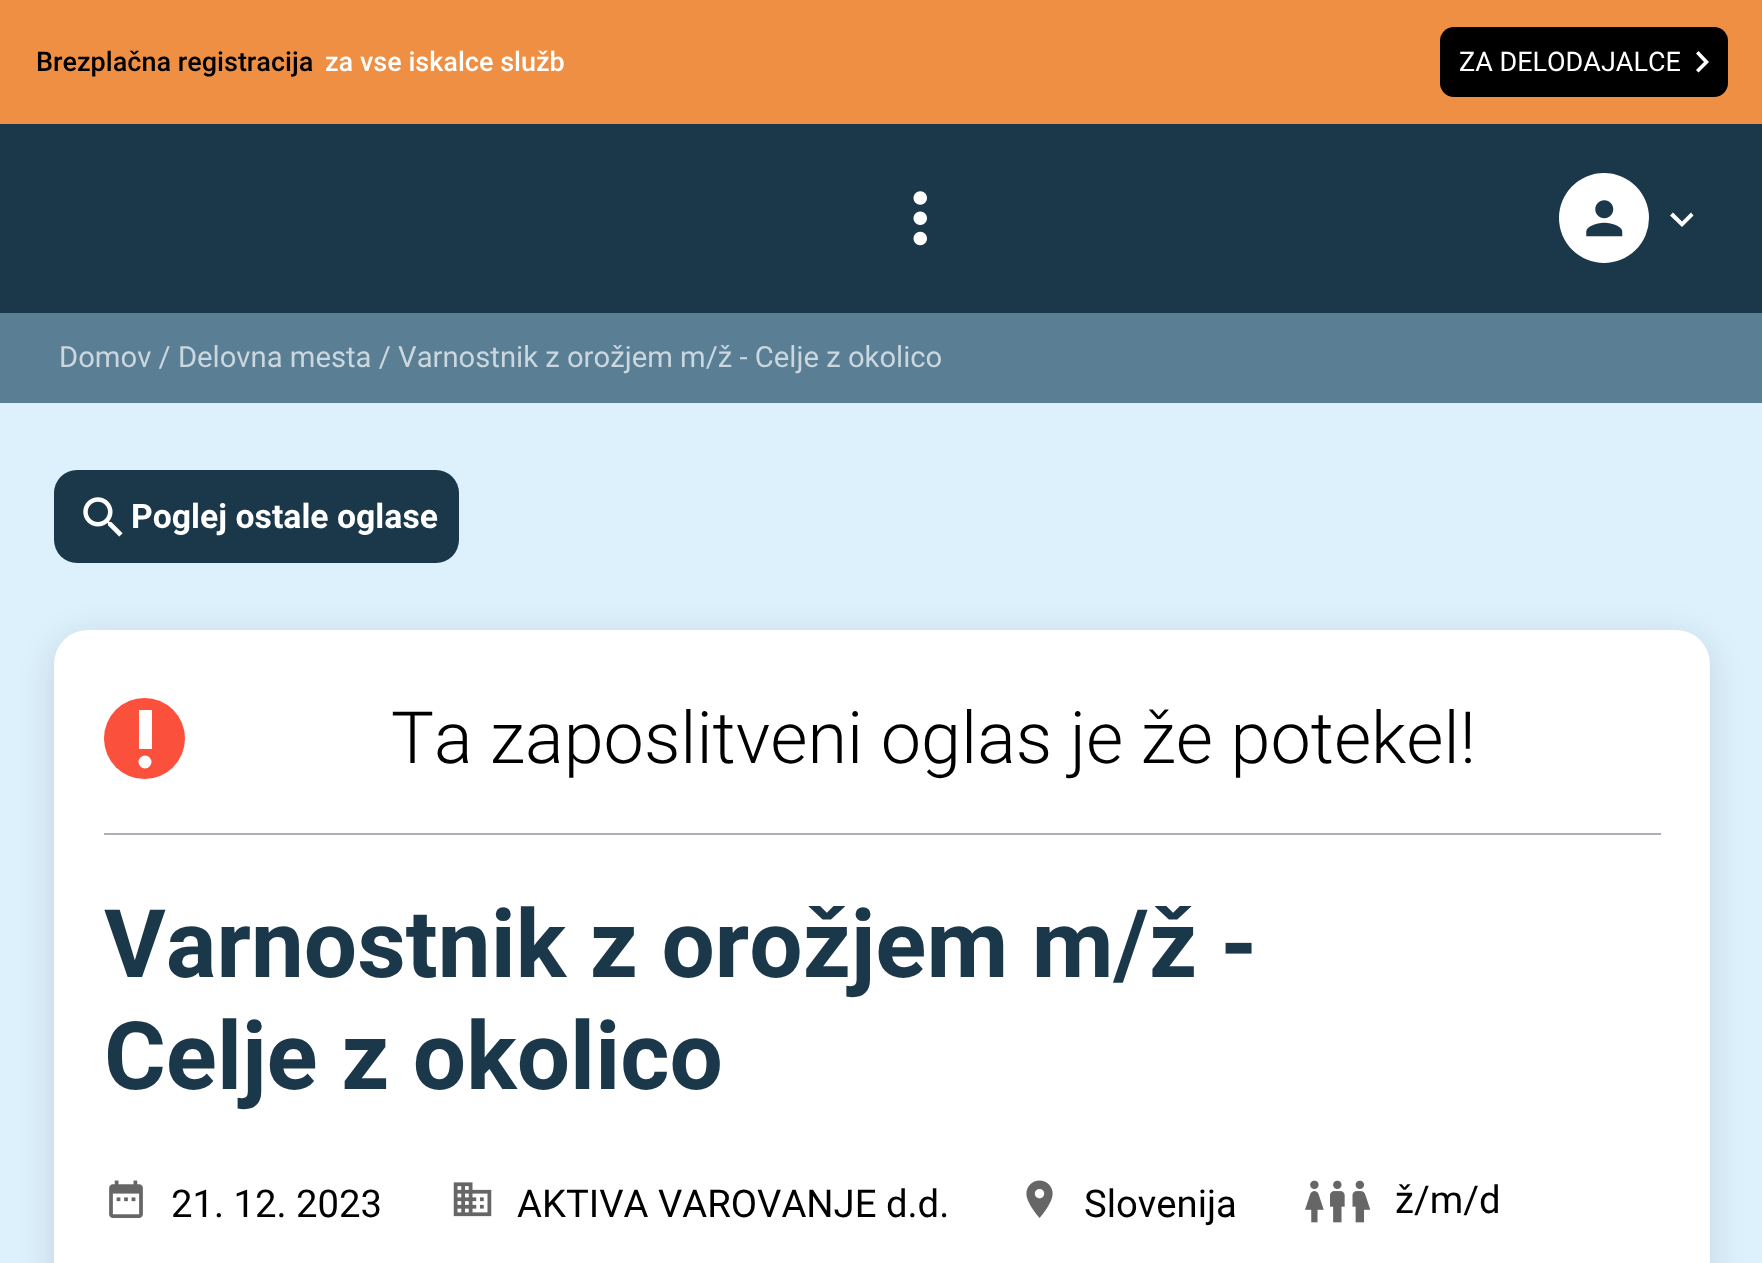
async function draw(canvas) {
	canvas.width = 1762;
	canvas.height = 1263;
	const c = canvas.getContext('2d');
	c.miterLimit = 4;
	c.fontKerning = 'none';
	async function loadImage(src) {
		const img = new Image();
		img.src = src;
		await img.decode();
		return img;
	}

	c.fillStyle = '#ee8f44';
	c.fillRect(0, 0, 1762, 1263);
	c.font = '500 27px Roboto';
	c.fillStyle = '#000';
	c.fillText('Brezplačna registracija', 36, 71);
	c.fillStyle = '#fff';
	c.fillText('za vse iskalce služb', 325, 71);
	c.fillStyle = '#000';
	c.beginPath();
	c.roundRect(1440, 27, 288, 70, 14);
	c.fill();
	c.font = '27px Roboto';
	c.fillStyle = '#fff';
	c.fillText('ZA DELODAJALCE', 1459, 71);
	c.beginPath();
	c.moveTo(1696, 70);
	c.lineTo(1704, 62);
	c.lineTo(1696, 53.5);
	c.lineTo(1698.5, 51);
	c.lineTo(1709, 62);
	c.lineTo(1698.5, 72.5);
	c.closePath();
	c.fill();
	c.fillStyle = '#1b374a';
	c.fillRect(0, 124, 1762, 189);
	c.drawImage(await loadImage('img1.png'), 913, 191, 14, 55);
	c.fillStyle = '#fff';
	c.beginPath();
	c.arc(1604, 218, 45, 0, 2 * Math.PI);
	c.fill();
	c.drawImage(await loadImage('img2.png'), 1586, 200, 37, 37);
	c.beginPath();
	c.moveTo(1673, 212.5);
	c.lineTo(1682, 221.5);
	c.lineTo(1691, 212.5);
	c.lineTo(1693.5, 215.5);
	c.lineTo(1682, 227);
	c.lineTo(1670, 215.5);
	c.closePath();
	c.fill();
	c.fillStyle = '#5a7f95';
	c.fillRect(0, 313, 1762, 90);
	c.font = '29.25px Roboto';
	c.fillStyle = '#cbd7de';
	c.fillText('Domov / Delovna mesta / Varnostnik z orožjem m/ž - Celje z okolico', 59, 367);
	c.fillStyle = '#ddf1fd';
	c.fillRect(0, 403, 1762, 860);
	c.fillStyle = '#1b374a';
	c.beginPath();
	c.roundRect(54, 470, 405, 93, 23);
	c.fill();
	c.drawImage(await loadImage('img3.png'), 83, 497, 40, 40);
	c.font = 'bold 33.75px Roboto';
	c.fillStyle = '#fff';
	c.fillText('Poglej ostale oglase', 131, 528);
	c.fillStyle = '#0000001f';
	c.filter = 'blur(17px)';
	c.beginPath();
	c.roundRect(54, 637, 1656, 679, 34);
	c.fill();
	c.filter = 'none';
	c.fillStyle = '#fff';
	c.beginPath();
	c.roundRect(54, 630, 1656, 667, 34);
	c.fill();
	c.fillStyle = '#fa503c';
	c.beginPath();
	c.arc(144.5, 738.5, 40.5, 0, 2 * Math.PI);
	c.fill();
	c.fillStyle = '#fff';
	c.beginPath();
	c.arc(145, 762, 6.5, 0, 2 * Math.PI);
	c.fill();
	c.fillRect(139, 710, 13, 39);
	c.font = '300 72px Roboto';
	c.fillStyle = '#000';
	c.fillText('Ta zaposlitveni oglas je že potekel!', 391, 763);
	c.fillStyle = '#abb0b7';
	c.fillRect(104, 833, 1557, 2);
	c.font = 'bold 94.5px Roboto';
	c.fillStyle = '#1b374a';
	c.fillText('Varnostnik z orožjem m/ž -', 104, 977);
	c.fillText('Celje z okolico', 104, 1089);
	c.drawImage(await loadImage('img4.png'), 109, 1180, 34, 38);
	c.font = '38.25px Roboto';
	c.fillStyle = '#000';
	c.fillText('21. 12. 2023', 171, 1217);
	c.drawImage(await loadImage('img5.png'), 453, 1182, 39, 35);
	c.fillText('AKTIVA VAROVANJE d.d.', 517, 1217);
	c.drawImage(await loadImage('img6.png'), 1026, 1180, 27, 38);
	c.fillText('Slovenija', 1084, 1217);
	c.drawImage(await loadImage('img7.png'), 1305, 1180, 66, 43);
	c.fillText('ž/m/d', 1395, 1213);
}

draw(document.querySelector('canvas'));
